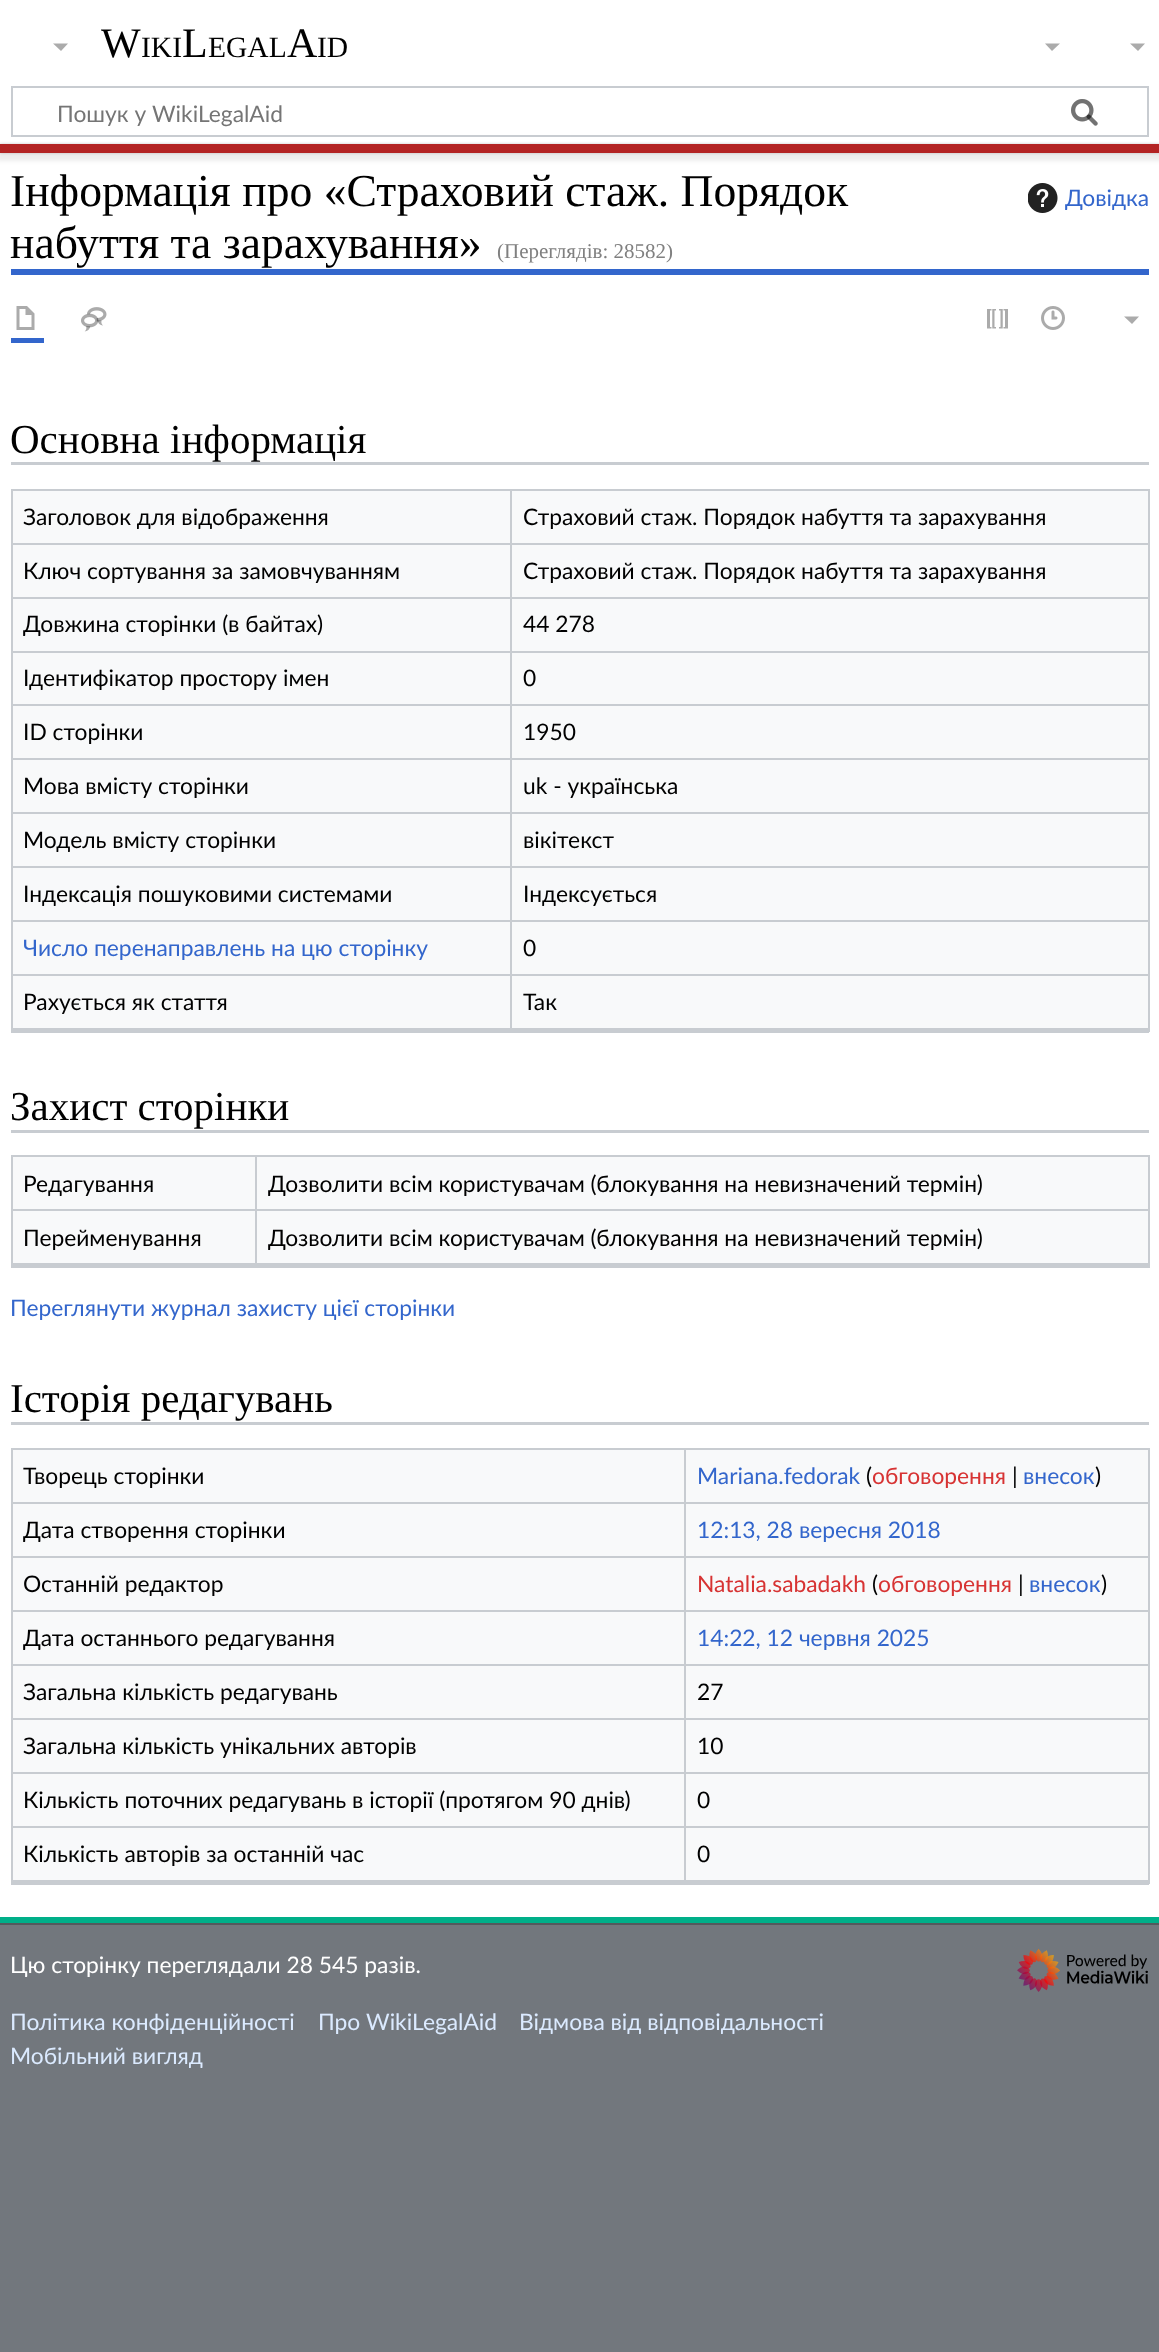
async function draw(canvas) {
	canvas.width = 1159;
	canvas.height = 2352;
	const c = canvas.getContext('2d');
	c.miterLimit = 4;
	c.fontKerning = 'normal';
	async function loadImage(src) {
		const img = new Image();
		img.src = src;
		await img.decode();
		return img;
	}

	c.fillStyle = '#72777d';
	c.fillRect(0, 0, 1159, 2352);
	c.fillStyle = '#fff';
	c.fillRect(0, 0, 1159, 144);
	c.font = '42px Liberation Serif';
	c.fillStyle = '#000';
	c.fillText('W', 101, 57);
	c.font = '29.5px Liberation Serif';
	c.fillText('IKI', 141, 57);
	c.font = '42px Liberation Serif';
	c.fillText('L', 182, 57);
	c.font = '29.5px Liberation Serif';
	c.fillText('EGAL', 208, 57);
	c.font = '42px Liberation Serif';
	c.fillText('A', 287, 57);
	c.font = '29.5px Liberation Serif';
	c.fillText('ID', 317, 57);
	c.fillStyle = '#ababab';
	c.beginPath();
	c.moveTo(1145, 43.5);
	c.lineTo(1138, 51);
	c.lineTo(1130, 43.5);
	c.closePath();
	c.fill();
	c.strokeStyle = '#c8ccd1';
	c.lineWidth = 2;
	c.strokeRect(12, 87, 1136, 49);
	c.drawImage(await loadImage('img1.png'), 1071, 99, 27, 27);
	c.font = '22.8px Lato';
	c.fillStyle = '#757575';
	c.fillText('Пошук у WikiLegalAid', 57, 122);
	c.drawImage(await loadImage('img2.png'), 1071, 99, 27, 27);
	c.fillStyle = '#fff';
	c.fillRect(0, 153, 1159, 1764);
	c.fillStyle = '#00000033';
	c.filter = 'blur(1.5px)';
	c.beginPath();
	c.rect(0, 144, 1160, 9);
	c.fill();
	c.filter = 'none';
	c.fillStyle = '#00000012';
	c.filter = 'blur(2px)';
	c.beginPath();
	c.rect(-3, 146, 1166, 15);
	c.fill();
	c.filter = 'none';
	c.fillStyle = '#b32424';
	c.fillRect(0, 144, 1159, 9);
	c.fillStyle = '#00af89';
	c.fillRect(0, 1917, 1159, 6);
	c.fillStyle = '#ababab';
	c.beginPath();
	c.moveTo(68, 43.5);
	c.lineTo(61, 51);
	c.lineTo(53, 43.5);
	c.closePath();
	c.fill();
	c.beginPath();
	c.moveTo(1060, 43.5);
	c.lineTo(1052, 51);
	c.lineTo(1045, 43.5);
	c.closePath();
	c.fill();
	c.fillStyle = '#36c';
	c.fillRect(11, 269, 1138, 6);
	c.font = '45.6px Liberation Serif';
	c.fillStyle = '#000';
	c.fillText('Інформація про «Страховий стаж. Порядок', 10, 206);
	c.fillText('набуття та зарахування»', 10, 258);
	c.font = '21px Liberation Serif';
	c.fillStyle = '#808080';
	c.fillText('(Переглядів: 28582)', 497, 258);
	c.drawImage(await loadImage('img3.png'), 1028, 183, 30, 30);
	c.font = '22.8px Lato';
	c.fillStyle = '#36c';
	c.fillText('Довідка', 1065, 206);
	c.fillRect(11, 338, 33, 5);
	c.drawImage(await loadImage('img4.png'), 16, 306, 19, 24);
	c.drawImage(await loadImage('img5.png'), 81, 307, 26, 25);
	c.drawImage(await loadImage('img6.png'), 987, 309, 21, 20);
	c.drawImage(await loadImage('img7.png'), 1041, 306, 24, 24);
	c.fillStyle = '#ababab';
	c.beginPath();
	c.moveTo(1139, 316.5);
	c.lineTo(1132, 324);
	c.lineTo(1124, 316.5);
	c.closePath();
	c.fill();
	c.fillStyle = '#c8ccd1';
	c.fillRect(11, 462, 1138, 3);
	c.font = '41px Liberation Serif';
	c.fillStyle = '#000';
	c.fillText('Основна інформація', 10, 453);
	for (const [x, y, w, h, color] of [
		[13, 491, 1135, 537, '#f8f9fa'],
		[11, 489, 1138, 2, '#c8ccd1'],
		[1148, 489, 2, 543, '#c8ccd1'],
		[11, 489, 2, 543, '#c8ccd1'],
		[510, 974, 639, 2, '#c8ccd1'],
		[510, 974, 2, 57, '#c8ccd1'],
		[11, 1028, 1138, 5, '#c8ccd1'],
	]) {
		c.fillStyle = color;
		c.fillRect(x, y, w, h);
	}
	c.font = '22.8px Lato';
	c.fillStyle = '#000';
	c.fillText('Заголовок для відображення', 23, 525);
	for (const [x, y, w, h, color] of [
		[510, 543, 639, 2, '#c8ccd1'],
		[510, 597, 639, 2, '#c8ccd1'],
		[510, 651, 639, 2, '#c8ccd1'],
		[510, 704, 639, 2, '#c8ccd1'],
		[510, 758, 639, 2, '#c8ccd1'],
		[510, 812, 639, 2, '#c8ccd1'],
		[510, 866, 639, 2, '#c8ccd1'],
		[510, 920, 639, 2, '#c8ccd1'],
		[11, 974, 501, 2, '#c8ccd1'],
		[510, 920, 2, 55, '#c8ccd1'],
		[11, 920, 501, 2, '#c8ccd1'],
		[510, 866, 2, 55, '#c8ccd1'],
		[11, 866, 501, 2, '#c8ccd1'],
		[510, 812, 2, 55, '#c8ccd1'],
		[11, 812, 501, 2, '#c8ccd1'],
		[510, 758, 2, 55, '#c8ccd1'],
		[11, 758, 501, 2, '#c8ccd1'],
		[510, 704, 2, 55, '#c8ccd1'],
		[11, 704, 501, 2, '#c8ccd1'],
		[510, 651, 2, 54, '#c8ccd1'],
		[11, 651, 501, 2, '#c8ccd1'],
		[510, 597, 2, 56, '#c8ccd1'],
		[11, 597, 501, 2, '#c8ccd1'],
		[510, 543, 2, 56, '#c8ccd1'],
		[11, 543, 501, 2, '#c8ccd1'],
		[510, 489, 2, 56, '#c8ccd1'],
	]) {
		c.fillStyle = color;
		c.fillRect(x, y, w, h);
	}
	c.fillStyle = '#000';
	for (const [text, x, y] of [
		['Страховий стаж. Порядок набуття та зарахування', 523, 525],
		['Ключ сортування за замовчуванням', 23, 579],
		['Страховий стаж. Порядок набуття та зарахування', 523, 579],
		['Довжина сторінки (в байтах)', 23, 632],
		['44 278', 523, 632],
		['Ідентифікатор простору імен', 23, 686],
		['0', 523, 686],
		['ID сторінки', 23, 740],
		['1950', 523, 740],
		['Мова вмісту сторінки', 23, 794],
		['uk - українська', 523, 794],
		['Модель вмісту сторінки', 23, 848],
		['вікітекст', 523, 848],
		['Індексація пошуковими системами', 23, 902],
		['Індексується', 523, 902],
	]) {
		c.fillText(text, x, y);
	}
	c.fillStyle = '#36c';
	c.fillText('Число перенаправлень на цю сторінку', 23, 956);
	c.fillStyle = '#000';
	for (const [text, x, y] of [
		['0', 523, 956],
		['Рахується як стаття', 23, 1010],
		['Так', 523, 1010],
	]) {
		c.fillText(text, x, y);
	}
	c.fillStyle = '#c8ccd1';
	c.fillRect(11, 1130, 1138, 3);
	c.font = '41px Liberation Serif';
	c.fillStyle = '#000';
	c.fillText('Захист сторінки', 10, 1120);
	for (const [x, y, w, h, color] of [
		[13, 1157, 1135, 106, '#f8f9fa'],
		[11, 1155, 1138, 2, '#c8ccd1'],
		[1148, 1155, 2, 113, '#c8ccd1'],
		[11, 1155, 2, 113, '#c8ccd1'],
		[255, 1209, 894, 2, '#c8ccd1'],
		[255, 1209, 2, 57, '#c8ccd1'],
		[11, 1263, 1138, 5, '#c8ccd1'],
	]) {
		c.fillStyle = color;
		c.fillRect(x, y, w, h);
	}
	c.font = '22.8px Lato';
	c.fillStyle = '#000';
	c.fillText('Редагування', 23, 1192);
	c.fillStyle = '#c8ccd1';
	c.fillRect(11, 1209, 246, 2);
	c.fillRect(255, 1155, 2, 56);
	c.fillStyle = '#000';
	for (const [text, x, y] of [
		['Дозволити всім користувачам (блокування на невизначений термін)', 268, 1192],
		['Перейменування', 23, 1246],
		['Дозволити всім користувачам (блокування на невизначений термін)', 268, 1246],
	]) {
		c.fillText(text, x, y);
	}
	c.fillStyle = '#36c';
	c.fillText('Переглянути журнал захисту цієї сторінки', 10, 1316);
	c.fillStyle = '#c8ccd1';
	c.fillRect(11, 1422, 1138, 3);
	c.font = '41px Liberation Serif';
	c.fillStyle = '#000';
	c.fillText('Історія редагувань', 10, 1412);
	for (const [x, y, w, h, color] of [
		[13, 1450, 1135, 430, '#f8f9fa'],
		[11, 1448, 1138, 2, '#c8ccd1'],
		[1148, 1448, 2, 436, '#c8ccd1'],
		[11, 1448, 2, 436, '#c8ccd1'],
		[684, 1826, 465, 2, '#c8ccd1'],
		[684, 1826, 2, 57, '#c8ccd1'],
		[11, 1880, 1138, 5, '#c8ccd1'],
	]) {
		c.fillStyle = color;
		c.fillRect(x, y, w, h);
	}
	c.font = '22.8px Lato';
	c.fillStyle = '#000';
	c.fillText('Творець сторінки', 23, 1484);
	for (const [x, y, w, h, color] of [
		[684, 1502, 465, 2, '#c8ccd1'],
		[684, 1556, 465, 2, '#c8ccd1'],
		[684, 1610, 465, 2, '#c8ccd1'],
		[684, 1664, 465, 2, '#c8ccd1'],
		[684, 1718, 465, 2, '#c8ccd1'],
		[684, 1772, 465, 2, '#c8ccd1'],
		[11, 1826, 675, 2, '#c8ccd1'],
		[684, 1772, 2, 55, '#c8ccd1'],
		[11, 1772, 675, 2, '#c8ccd1'],
		[684, 1718, 2, 55, '#c8ccd1'],
		[11, 1718, 675, 2, '#c8ccd1'],
		[684, 1664, 2, 55, '#c8ccd1'],
		[11, 1664, 675, 2, '#c8ccd1'],
		[684, 1610, 2, 55, '#c8ccd1'],
		[11, 1610, 675, 2, '#c8ccd1'],
		[684, 1556, 2, 55, '#c8ccd1'],
		[11, 1556, 675, 2, '#c8ccd1'],
		[684, 1502, 2, 55, '#c8ccd1'],
		[11, 1502, 675, 2, '#c8ccd1'],
		[684, 1448, 2, 55, '#c8ccd1'],
	]) {
		c.fillStyle = color;
		c.fillRect(x, y, w, h);
	}
	c.fillStyle = '#36c';
	c.fillText('Mariana.fedorak', 697, 1484);
	c.fillStyle = '#000';
	c.fillText('(', 866, 1484);
	c.fillStyle = '#d73333';
	c.fillText('обговорення', 872, 1484);
	c.fillStyle = '#000';
	c.fillText('|', 1012, 1484);
	c.fillStyle = '#36c';
	c.fillText('внесок', 1023, 1484);
	c.fillStyle = '#000';
	c.fillText(')', 1095, 1484);
	c.fillText('Дата створення сторінки', 23, 1538);
	c.fillStyle = '#36c';
	c.fillText('12:13, 28 вересня 2018', 697, 1538);
	c.fillStyle = '#000';
	c.fillText('Останній редактор', 23, 1592);
	c.fillStyle = '#d73333';
	c.fillText('Natalia.sabadakh', 697, 1592);
	c.fillStyle = '#000';
	c.fillText('(', 872, 1592);
	c.fillStyle = '#d73333';
	c.fillText('обговорення', 878, 1592);
	c.fillStyle = '#000';
	c.fillText('|', 1018, 1592);
	c.fillStyle = '#36c';
	c.fillText('внесок', 1029, 1592);
	c.fillStyle = '#000';
	c.fillText(')', 1101, 1592);
	c.fillText('Дата останнього редагування', 23, 1646);
	c.fillStyle = '#36c';
	c.fillText('14:22, 12 червня 2025', 697, 1646);
	c.fillStyle = '#000';
	for (const [text, x, y] of [
		['Загальна кількість редагувань', 23, 1700],
		['27', 697, 1700],
		['Загальна кількість унікальних авторів', 23, 1754],
		['10', 697, 1754],
		['Кількість поточних редагувань в історії (протягом 90 днів)', 23, 1808],
		['0', 697, 1808],
		['Кількість авторів за останній час', 23, 1862],
		['0', 697, 1862],
	]) {
		c.fillText(text, x, y);
	}
	c.fillStyle = '#54595d';
	c.fillRect(0, 1923, 1159, 2);
	c.fillStyle = '#fff';
	c.fillText('Цю сторінку переглядали 28 545 разів.', 10, 1973);
	c.fillStyle = '#dbeaff';
	for (const [text, x, y] of [
		['Політика конфіденційності', 10, 2030],
		['Про WikiLegalAid', 318, 2030],
		['Відмова від відповідальності', 519, 2030],
		['Мобільний вигляд', 10, 2064],
	]) {
		c.fillText(text, x, y);
	}
	c.drawImage(await loadImage('img8.png'), 1017, 1948, 131, 44);
}

draw(document.querySelector('canvas'));
